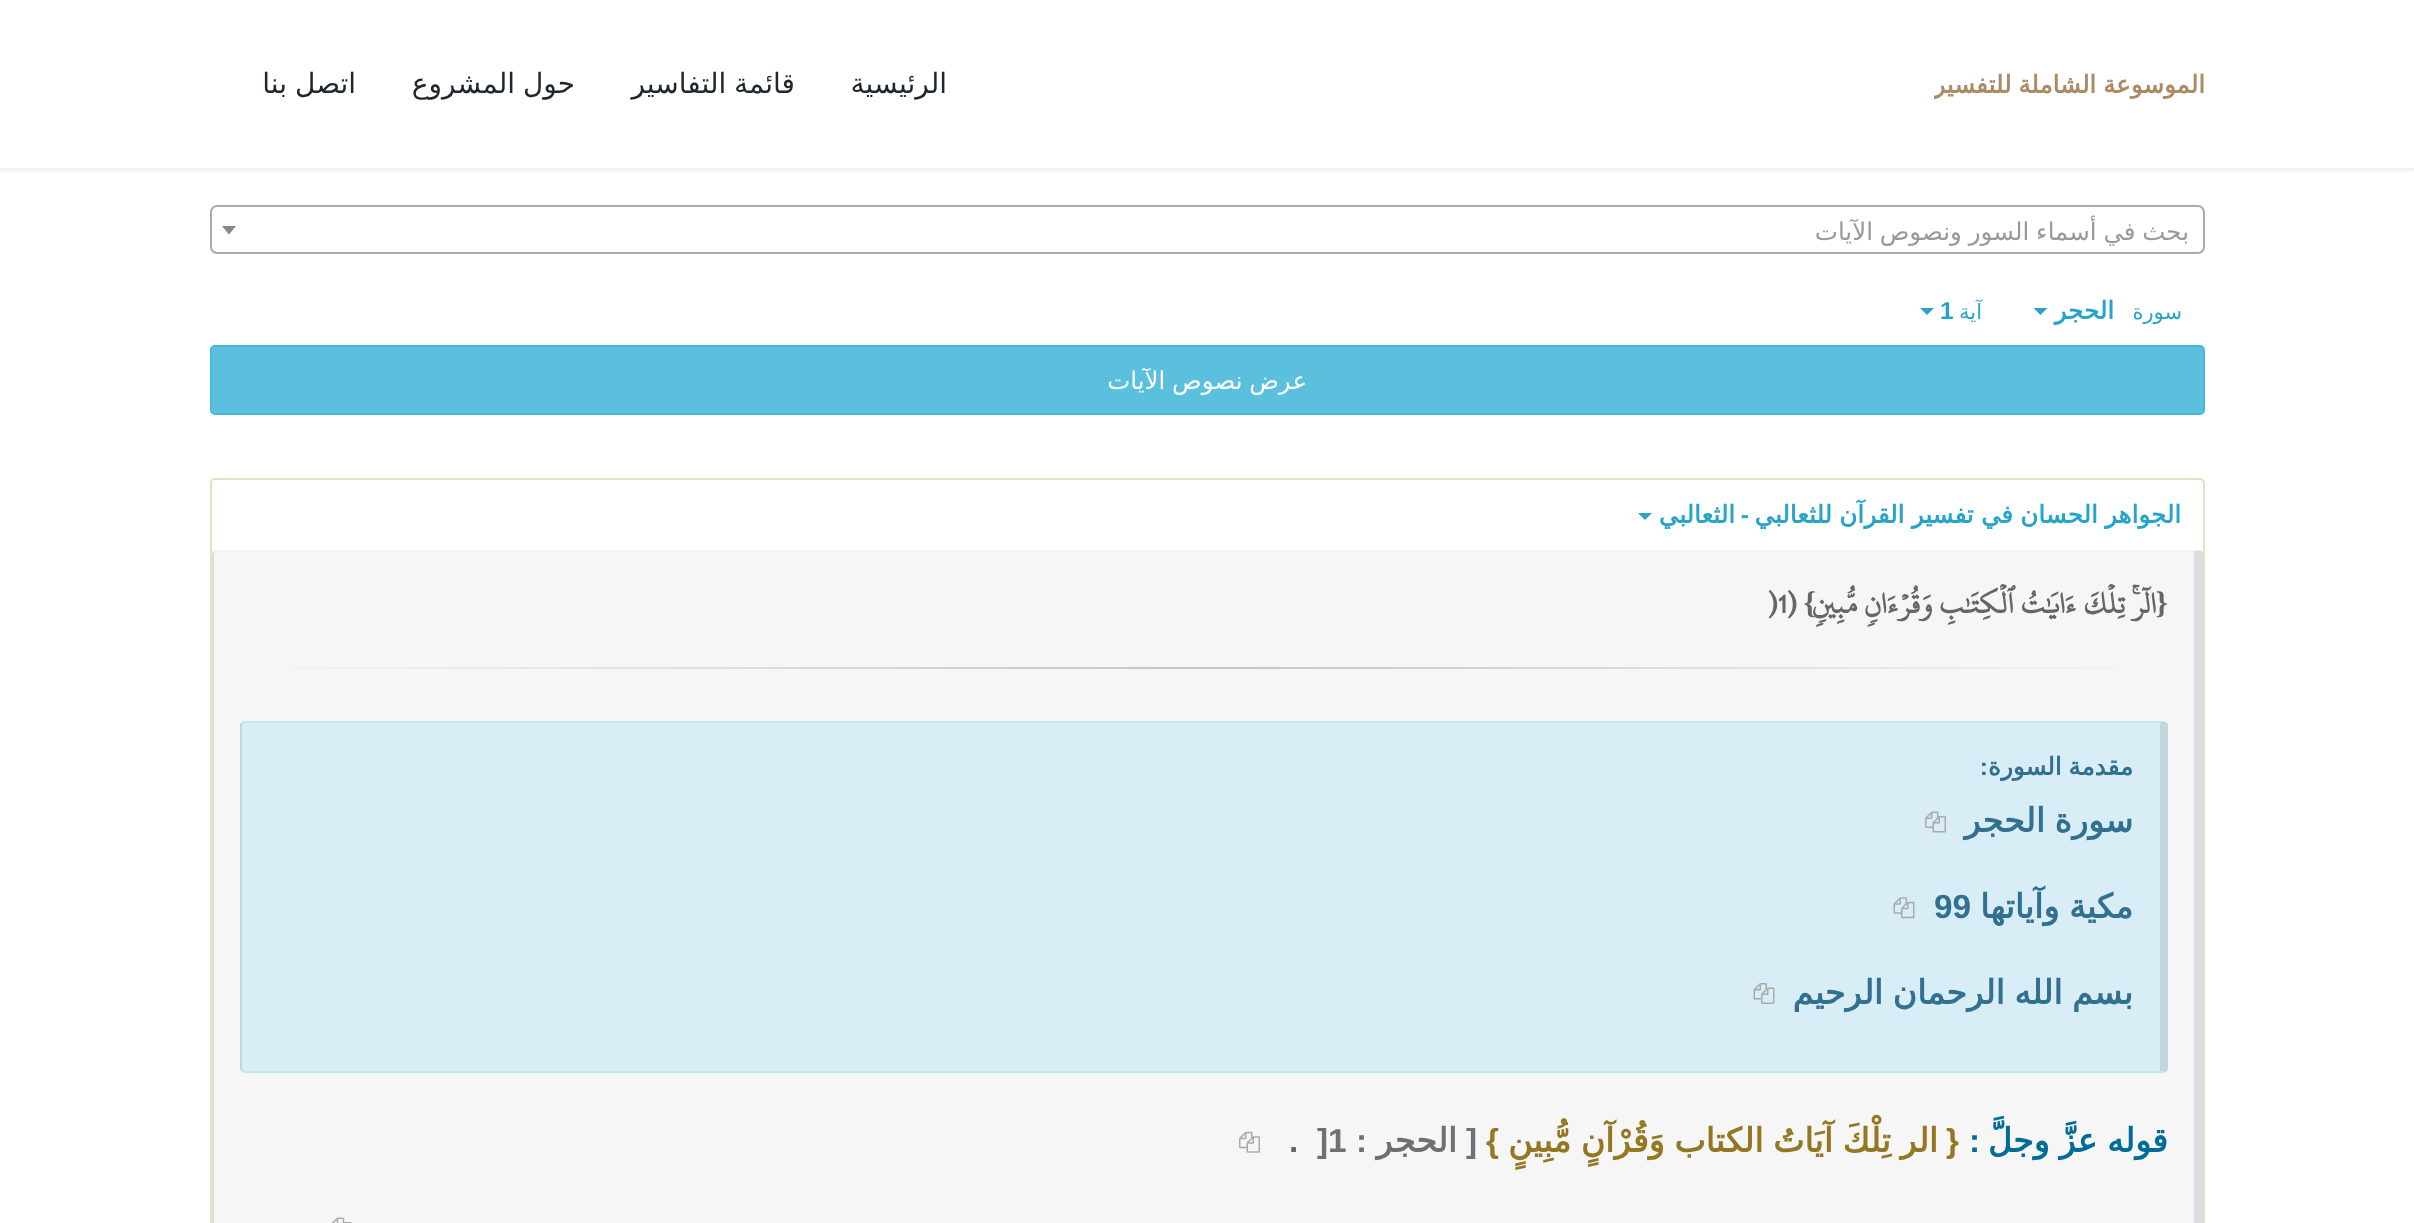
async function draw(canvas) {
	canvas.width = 2414;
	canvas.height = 1223;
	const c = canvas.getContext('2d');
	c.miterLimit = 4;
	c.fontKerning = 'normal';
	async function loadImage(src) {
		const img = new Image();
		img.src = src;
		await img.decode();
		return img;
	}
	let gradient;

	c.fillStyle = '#fff';
	c.fillRect(0, 0, 2414, 1223);
	c.fillStyle = '#0000001a';
	c.filter = 'blur(2px)';
	c.beginPath();
	c.rect(0, 0, 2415, 170);
	c.fill();
	c.filter = 'none';
	c.fillStyle = '#fff';
	c.fillRect(0, 0, 2414, 168);
	c.fillStyle = '#f2f2f2';
	c.fillRect(0, 168, 2414, 2);
	c.save();
	c.beginPath();
	c.rect(1934, 0, 271, 168);
	c.clip();
	c.wordSpacing = '-1px';
	c.direction = 'rtl';
	c.font = 'bold 24.5px DejaVu Sans';
	c.fillStyle = '#ab8b64';
	c.fillText('الموسوعة الشاملة للتفسير', 2205, 93);
	c.restore();
	c.direction = 'rtl';
	c.font = '28px DejaVu Sans';
	c.fillStyle = '#1f262d';
	c.fillText('الرئيسية', 947, 93);
	c.wordSpacing = '-1px';
	for (const [text, x, y] of [
		['قائمة التفاسير', 795, 93],
		['حول المشروع', 575, 93],
		['اتصل بنا', 356, 93],
	]) {
		c.fillText(text, x, y);
	}
	c.beginPath();
	c.roundRect(211, 206, 1993, 47, 6);
	c.strokeStyle = '#aaa';
	c.lineWidth = 2;
	c.stroke();
	c.font = '24.5px DejaVu Sans';
	c.fillStyle = '#999';
	c.fillText('بحث في أسماء السور ونصوص الآيات', 2189, 240);
	c.fillStyle = '#888';
	c.beginPath();
	c.moveTo(222, 226);
	c.lineTo(236, 226);
	c.lineTo(229, 234.5);
	c.closePath();
	c.fill();
	c.wordSpacing = '0px';
	c.font = '21px DejaVu Sans';
	c.fillStyle = '#28a4c9';
	c.fillText('سورة', 2182, 319);
	c.font = 'bold 24.5px DejaVu Sans';
	c.fillText('الحجر', 2114, 319);
	c.beginPath();
	c.moveTo(2033.5, 308);
	c.lineTo(2047.5, 308);
	c.lineTo(2040.5, 315);
	c.closePath();
	c.fill();
	c.font = '21px DejaVu Sans';
	c.fillText('آية', 1982, 319);
	c.direction = 'ltr';
	c.font = 'bold 24.5px Liberation Sans';
	c.fillText('1', 1940, 319);
	c.beginPath();
	c.moveTo(1920, 308);
	c.lineTo(1934, 308);
	c.lineTo(1927, 315);
	c.closePath();
	c.fill();
	c.fillStyle = '#5bc0de';
	c.beginPath();
	c.roundRect(211, 346, 1993, 68, 4);
	c.fill();
	c.strokeStyle = '#46b8da';
	c.stroke();
	c.wordSpacing = '-1px';
	c.direction = 'rtl';
	c.font = '24.5px DejaVu Sans';
	c.fillStyle = '#fff';
	c.fillText('عرض نصوص الآيات', 1307, 389);
	c.beginPath();
	c.roundRect(211, 479, 1993, 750, 4);
	c.strokeStyle = '#d6e9c6';
	c.stroke();
	c.wordSpacing = '-0.5px';
	c.font = 'bold 24.5px DejaVu Sans';
	c.fillStyle = '#28a4c9';
	c.fillText('الجواهر الحسان في تفسير القرآن للثعالبي', 2181, 523);
	c.wordSpacing = '0px';
	c.font = 'bold 24.5px Liberation Sans';
	c.fillText('-', 1749, 523);
	c.font = 'bold 24.5px DejaVu Sans';
	c.fillText('الثعالبي', 1735, 523);
	c.beginPath();
	c.moveTo(1638, 513);
	c.lineTo(1652, 513);
	c.lineTo(1645, 520);
	c.closePath();
	c.fill();
	c.fillStyle = '#f6f6f6';
	c.beginPath();
	c.roundRect(212, 550, 1991, 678, 5);
	c.fill();
	c.fillStyle = '#0000001a';
	c.beginPath();
	c.moveTo(2200, 550);
	c.bezierCurveTo(2202, 551, 2203, 553, 2203, 555);
	c.lineTo(2203, 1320);
	c.bezierCurveTo(2203, 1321, 2202, 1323, 2201, 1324);
	c.lineTo(2194, 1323);
	c.lineTo(2194, 551);
	c.closePath();
	c.fill();
	c.beginPath();
	c.moveTo(214, 551);
	c.bezierCurveTo(212, 552, 212, 554, 212, 555);
	c.lineTo(212, 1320);
	c.lineTo(213, 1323);
	c.lineTo(215, 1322);
	c.lineTo(214, 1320);
	c.lineTo(214, 555);
	c.lineTo(215, 552);
	c.closePath();
	c.fill();
	c.font = 'bold 31.5px Liberation Serif';
	c.fillStyle = '#666';
	c.fillText('{', 2168, 613);
	c.font = 'bold 31.5px "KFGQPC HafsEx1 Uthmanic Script"';
	c.fillText('الٓرۚ تِلۡكَ ءَايَٰتُ ٱلۡكِتَٰبِ وَقُرۡءَانٖ مُّبِينٖ', 2156, 613);
	c.font = 'bold 31.5px Liberation Serif';
	c.fillText('}', 1816, 613);
	c.font = 'bold 31.5px "KFGQPC HafsEx1 Uthmanic Script"';
	c.fillText('(', 1797, 613);
	c.direction = 'ltr';
	c.fillText(')1', 1767, 613);
	gradient = c.createLinearGradient(240, 668, 2168, 668);
	gradient.addColorStop(0, '#f6f6f6');
	gradient.addColorStop(0.5, '#c5c5c5');
	gradient.addColorStop(1, '#f6f6f6');
	c.fillStyle = gradient;
	c.fillRect(289, 667, 1830, 2);
	c.fillStyle = '#d9edf7';
	c.beginPath();
	c.roundRect(240, 721, 1928, 352, 5);
	c.fill();
	c.fillStyle = '#bce8f1';
	c.beginPath();
	c.moveTo(245, 721);
	c.bezierCurveTo(243, 721, 242, 722, 241, 723);
	c.lineTo(243, 724);
	c.bezierCurveTo(243, 723, 244, 723, 245, 723);
	c.lineTo(2158, 723);
	c.lineTo(2165, 722);
	c.lineTo(2163, 721);
	c.closePath();
	c.fill();
	c.fillStyle = '#0000001a';
	c.beginPath();
	c.moveTo(2165, 722);
	c.bezierCurveTo(2167, 722, 2168, 724, 2168, 726);
	c.lineTo(2168, 1068);
	c.bezierCurveTo(2168, 1069, 2167, 1071, 2166, 1072);
	c.lineTo(2160, 1071);
	c.lineTo(2160, 723);
	c.lineTo(2158, 723);
	c.closePath();
	c.fill();
	c.fillStyle = '#bce8f1';
	c.beginPath();
	c.moveTo(244, 1073);
	c.lineTo(241, 1071);
	c.lineTo(243, 1070);
	c.bezierCurveTo(243, 1070, 244, 1071, 245, 1071);
	c.lineTo(2160, 1071);
	c.lineTo(2166, 1072);
	c.lineTo(2164, 1073);
	c.closePath();
	c.fill();
	c.fillStyle = '#0000001a';
	c.beginPath();
	c.moveTo(241, 723);
	c.bezierCurveTo(240, 723, 240, 725, 240, 726);
	c.lineTo(240, 1068);
	c.lineTo(241, 1071);
	c.lineTo(243, 1070);
	c.lineTo(242, 1068);
	c.lineTo(242, 726);
	c.lineTo(243, 724);
	c.closePath();
	c.fill();
	c.wordSpacing = '-1px';
	c.direction = 'rtl';
	c.font = 'bold 24.5px DejaVu Sans';
	c.fillStyle = '#31708f';
	c.fillText('مقدمة السورة', 2133, 775);
	c.wordSpacing = '0px';
	c.font = 'bold 24.5px Liberation Sans';
	c.fillText(':', 1988, 775);
	c.wordSpacing = '-1px';
	c.font = 'bold 33.25px DejaVu Sans';
	c.fillText('سورة الحجر', 2133, 832);
	c.drawImage(await loadImage('img1.png'), 1925, 811, 21, 22);
	c.fillText('مكية وآياتها', 2133, 918);
	c.wordSpacing = '0px';
	c.direction = 'ltr';
	c.font = 'bold 33.25px Liberation Sans';
	c.fillText('99', 1934, 918);
	c.drawImage(await loadImage('img2.png'), 1893, 897, 22, 22);
	c.wordSpacing = '-1px';
	c.direction = 'rtl';
	c.font = 'bold 33.25px DejaVu Sans';
	c.fillText('بسم الله الرحمان الرحيم', 2133, 1004);
	c.drawImage(await loadImage('img3.png'), 1753, 983, 22, 21);
	c.fillStyle = '#006d98';
	c.fillText('قوله عزَّ وجلَّ', 2168, 1152);
	c.wordSpacing = '0px';
	c.font = 'bold 33.25px Liberation Sans';
	c.fillText(':', 1980, 1152);
	c.fillStyle = '#947721';
	c.fillText('{', 1959, 1152);
	c.wordSpacing = '-1px';
	c.font = 'bold 33.25px DejaVu Sans';
	c.fillText('الر تِلْكَ آيَاتُ الكتاب وَقُرْآنٍ مُّبِينٍ', 1938, 1152);
	c.wordSpacing = '0px';
	c.font = 'bold 33.25px Liberation Sans';
	c.fillText('}', 1499, 1152);
	c.fillStyle = '#707070';
	c.fillText('[', 1477, 1152);
	c.font = 'bold 33.25px DejaVu Sans';
	c.fillText('الحجر', 1457, 1152);
	c.font = 'bold 33.25px Liberation Sans';
	c.fillText(':', 1367, 1152);
	c.direction = 'ltr';
	c.fillText(']1', 1317, 1152);
	c.fillStyle = '#666';
	c.fillText('.', 1289, 1152);
	c.drawImage(await loadImage('img4.png'), 1239, 1131, 21, 22);
	c.drawImage(await loadImage('img5.png'), 331, 1217, 21, 6);
}

draw(document.querySelector('canvas'));
